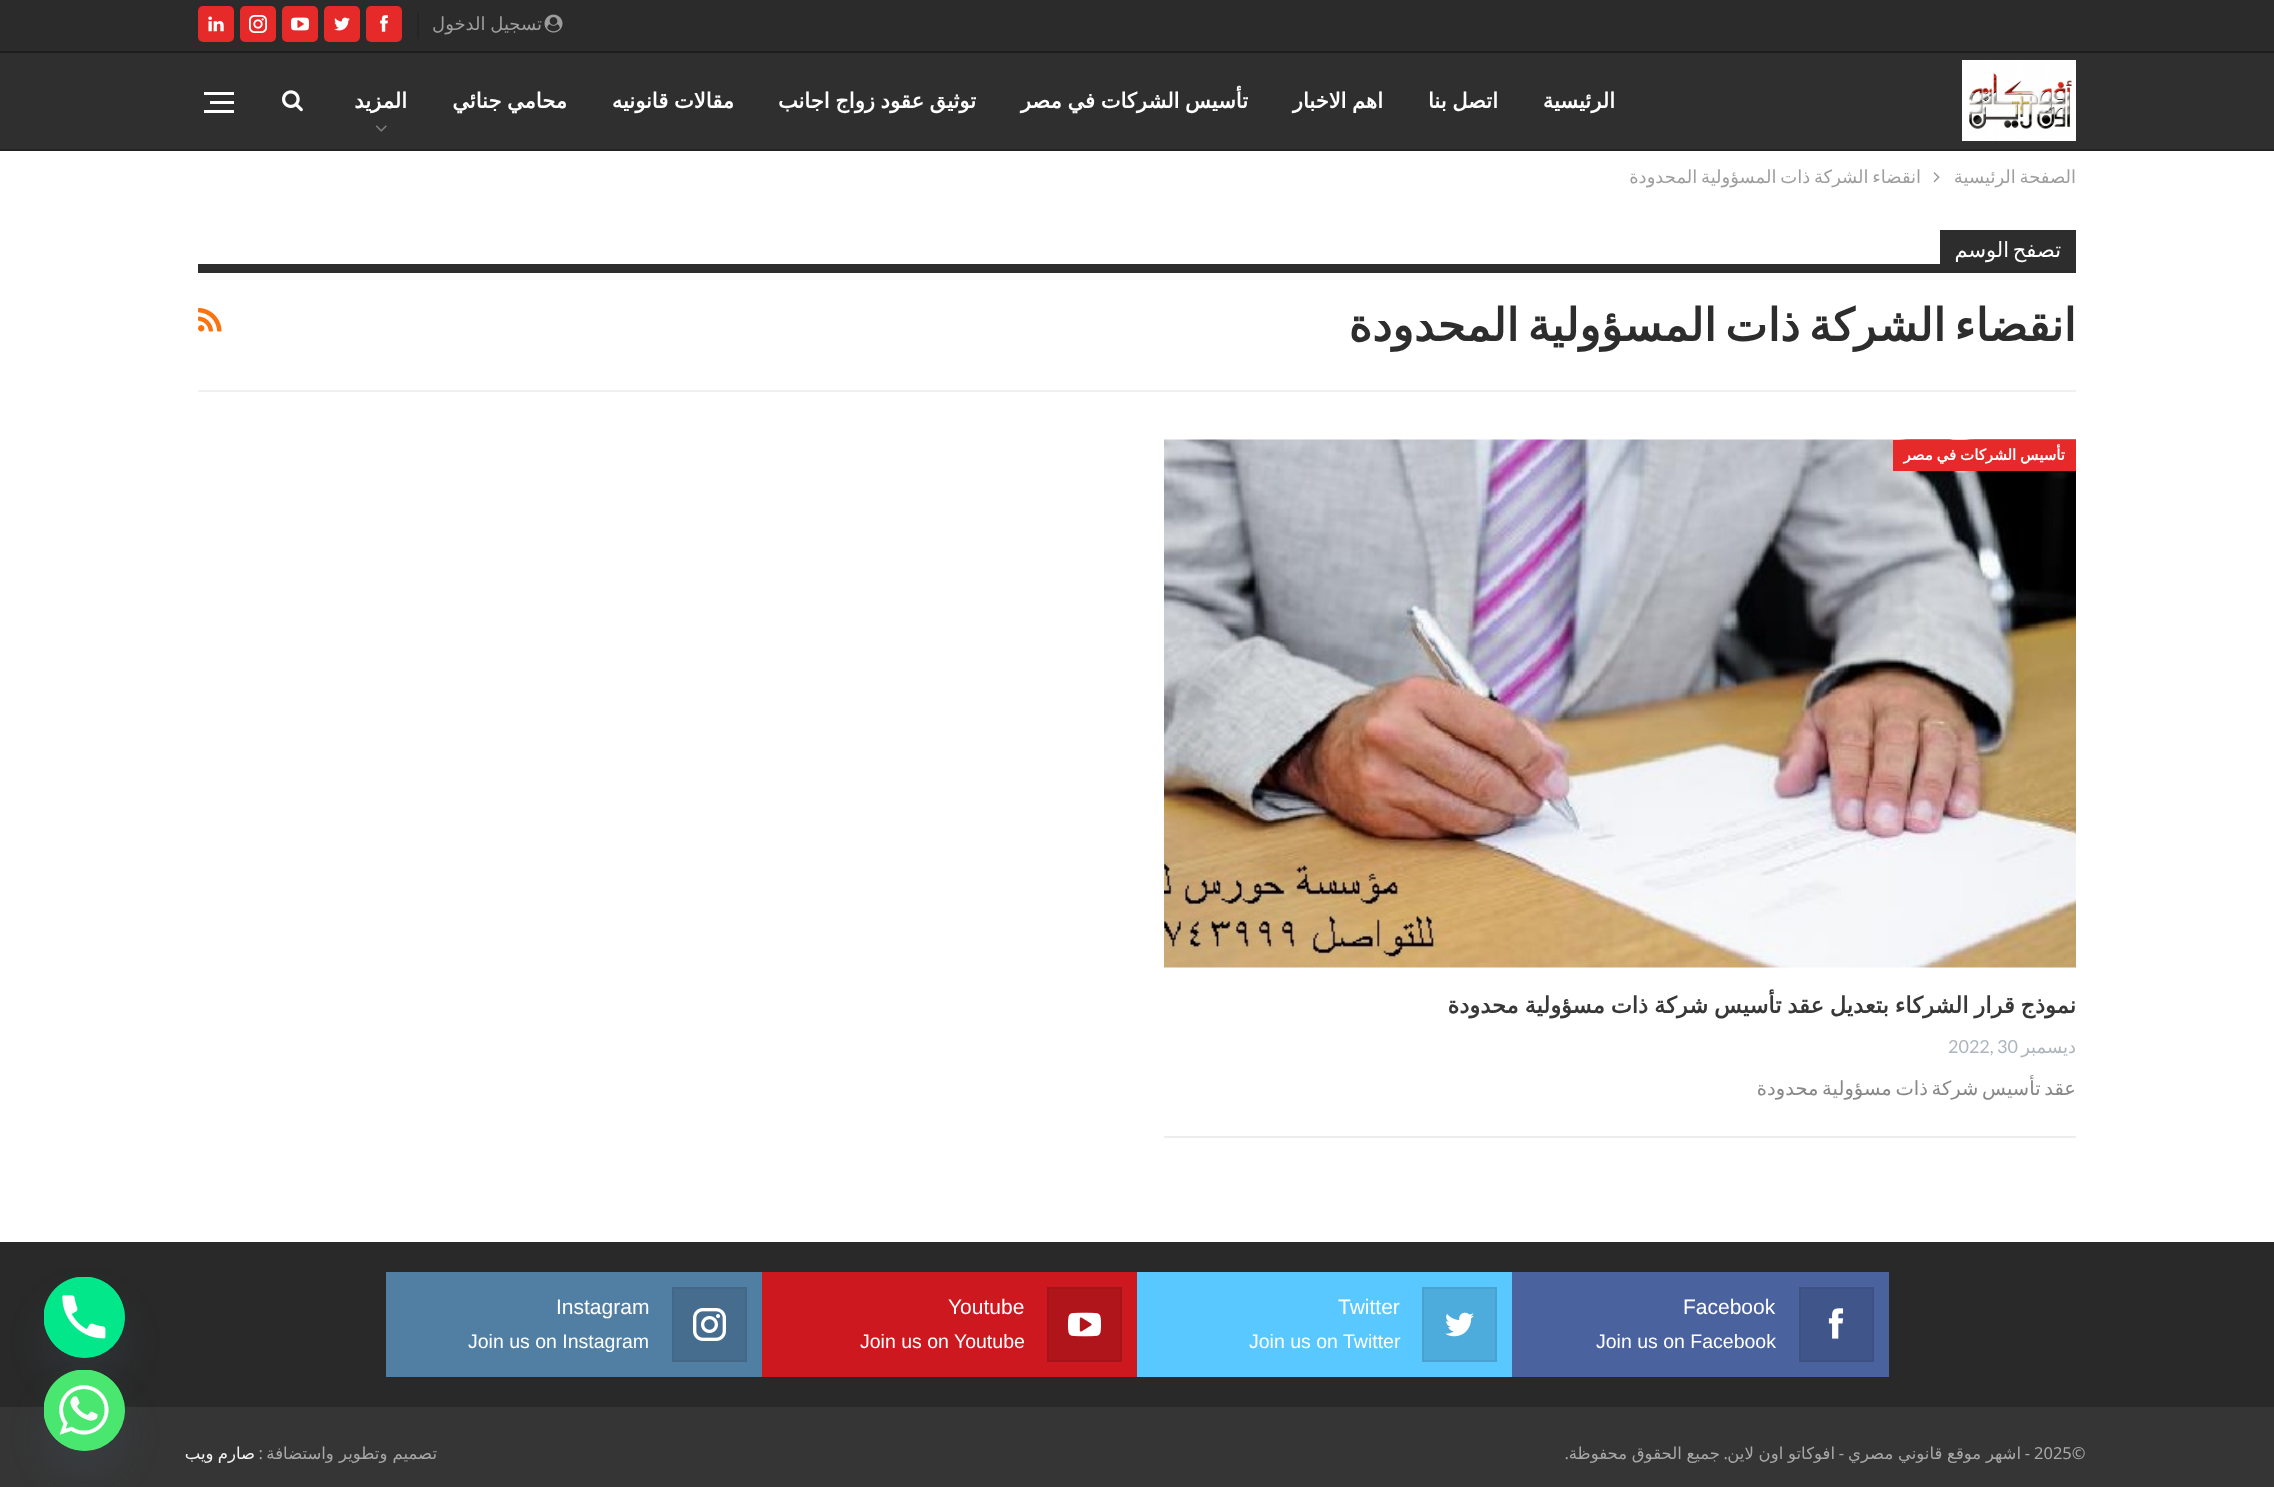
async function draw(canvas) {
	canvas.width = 2274;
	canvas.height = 1487;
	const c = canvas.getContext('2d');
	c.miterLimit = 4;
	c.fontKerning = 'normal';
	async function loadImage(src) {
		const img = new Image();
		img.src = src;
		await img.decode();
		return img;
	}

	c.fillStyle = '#fff';
	c.fillRect(0, 0, 2274, 1487);
	for (const [x, y, w, h, color] of [
		[0, 53, 2274, 96, '#2f2f2f'],
		[0, 149, 2274, 2, '#232323'],
		[0, 0, 2274, 51, '#2b2b2b'],
		[0, 51, 2274, 2, '#1d1d1d'],
	]) {
		c.fillStyle = color;
		c.fillRect(x, y, w, h);
	}
	c.drawImage(await loadImage('img1.png'), 544, 14, 19, 19);
	c.wordSpacing = '-1px';
	c.direction = 'rtl';
	c.font = '18px DejaVu Sans';
	c.fillStyle = '#9e9e9e';
	c.fillText('تسجيل الدخول', 542, 30);
	c.fillStyle = '#252525';
	c.fillRect(417, 12, 2, 27);
	c.fillStyle = '#e62929';
	c.beginPath();
	c.roundRect(366, 6, 36, 36, 5);
	c.fill();
	c.drawImage(await loadImage('img2.png'), 380, 15, 8, 17);
	c.beginPath();
	c.roundRect(324, 6, 36, 36, 5);
	c.fill();
	c.drawImage(await loadImage('img3.png'), 334, 17, 16, 14);
	c.beginPath();
	c.roundRect(282, 6, 36, 36, 5);
	c.fill();
	c.drawImage(await loadImage('img4.png'), 291, 17, 18, 14);
	c.beginPath();
	c.roundRect(240, 6, 36, 36, 5);
	c.fill();
	c.drawImage(await loadImage('img5.png'), 249, 15, 18, 18);
	c.beginPath();
	c.roundRect(198, 6, 36, 36, 5);
	c.fill();
	c.drawImage(await loadImage('img6.png'), 208, 16, 16, 16);
	c.drawImage(await loadImage('img7.png'), 1962, 60, 114, 81);
	c.wordSpacing = '0px';
	c.font = 'bold 21px DejaVu Sans';
	c.fillStyle = '#fff';
	c.fillText('الرئيسية', 1615, 108);
	c.wordSpacing = '-1px';
	for (const [text, x, y] of [
		['اتصل بنا', 1498, 108],
		['اهم الاخبار', 1383, 108],
		['تأسيس الشركات في مصر', 1248, 108],
		['توثيق عقود زواج اجانب', 976, 108],
		['مقالات قانونيه', 734, 108],
		['محامي جنائي', 567, 108],
	]) {
		c.fillText(text, x, y);
	}
	c.wordSpacing = '0px';
	c.fillText('المزيد', 407, 108);
	c.drawImage(await loadImage('img8.png'), 375, 125, 12, 7);
	c.drawImage(await loadImage('img9.png'), 282, 90, 21, 22);
	for (const [x, y, w, h, color] of [
		[210, 101, 24, 3, '#fff'],
		[204, 92, 30, 3, '#fff'],
		[204, 110, 30, 3, '#fff'],
	]) {
		c.fillStyle = color;
		c.fillRect(x, y, w, h);
	}
	c.wordSpacing = '-2px';
	c.font = '18px DejaVu Sans';
	c.fillStyle = '#9e9e9e';
	c.fillText('الصفحة الرئيسية', 2076, 183);
	c.drawImage(await loadImage('img10.png'), 1933, 172, 7, 11);
	c.fillText('انقضاء الشركة ذات المسؤولية المحدودة', 1921, 183);
	c.fillStyle = '#f0f0f0';
	c.fillRect(198, 390, 1878, 2);
	c.fillStyle = '#2d2d2d';
	c.fillRect(1940, 230, 136, 34);
	c.wordSpacing = '-3px';
	c.font = '21px DejaVu Sans';
	c.fillStyle = '#fff';
	c.fillText('تصفح الوسم', 2061, 257);
	c.fillStyle = '#2d2d2d';
	c.fillRect(198, 264, 1878, 9);
	c.wordSpacing = '-5.5px';
	c.font = 'bold 45px DejaVu Sans';
	c.fillText('انقضاء الشركة ذات المسؤولية المحدودة', 2076, 341);
	c.drawImage(await loadImage('img11.png'), 198, 307, 24, 25);
	c.drawImage(await loadImage('img12.png'), 1164, 439, 912, 529);
	c.fillStyle = '#e62929';
	c.fillRect(1893, 440, 183, 31);
	c.wordSpacing = '-1px';
	c.font = 'bold 15px DejaVu Sans';
	c.fillStyle = '#fff';
	c.fillText('تأسيس الشركات في مصر', 2065, 460);
	c.wordSpacing = '-1.25px';
	c.font = 'bold 22.5px DejaVu Sans';
	c.fillStyle = '#383838';
	c.fillText('نموذج قرار الشركاء بتعديل عقد تأسيس شركة ذات مسؤولية محدودة', 2076, 1013);
	c.wordSpacing = '0px';
	c.font = '18px DejaVu Sans';
	c.fillStyle = '#adb5bd';
	c.fillText('ديسمبر', 2076, 1053);
	c.direction = 'ltr';
	c.font = '18px Lato';
	c.fillText('2022, 30', 1948, 1053);
	c.fillStyle = '#ededed';
	c.fillRect(1164, 1136, 912, 2);
	c.wordSpacing = '-2.5px';
	c.direction = 'rtl';
	c.font = '19.5px DejaVu Sans';
	c.fillStyle = '#888';
	c.fillText('عقد تأسيس شركة ذات مسؤولية محدودة', 2076, 1095);
	c.fillStyle = '#292929';
	c.fillRect(0, 1242, 2274, 165);
	c.fillStyle = '#4a639f';
	c.fillRect(1512, 1272, 377, 105);
	c.fillStyle = '#405589';
	c.beginPath();
	c.rect(1800, 1288, 73, 73);
	c.fill();
	c.strokeStyle = '#3d5182';
	c.lineWidth = 2;
	c.stroke();
	c.drawImage(await loadImage('img13.png'), 1828, 1308, 16, 31);
	c.wordSpacing = '0px';
	c.direction = 'ltr';
	c.font = '21px Liberation Sans';
	c.fillStyle = '#fff';
	c.fillText('Facebook', 1683, 1314);
	c.font = '19.5px Liberation Sans';
	c.fillText('Join us on Facebook', 1596, 1348);
	c.fillStyle = '#59c8ff';
	c.fillRect(1137, 1272, 375, 105);
	c.fillStyle = '#4dacdb';
	c.beginPath();
	c.rect(1423, 1288, 73, 73);
	c.fill();
	c.strokeStyle = '#49a3d0';
	c.stroke();
	c.drawImage(await loadImage('img14.png'), 1445, 1312, 29, 25);
	c.font = '21px Liberation Sans';
	c.fillStyle = '#fff';
	c.fillText('Twitter', 1338, 1314);
	c.font = '19.5px Liberation Sans';
	c.fillText('Join us on Twitter', 1249, 1348);
	c.fillStyle = '#cc181e';
	c.fillRect(762, 1272, 375, 105);
	c.fillStyle = '#af151a';
	c.beginPath();
	c.rect(1048, 1288, 73, 73);
	c.fill();
	c.strokeStyle = '#a61419';
	c.stroke();
	c.drawImage(await loadImage('img15.png'), 1068, 1312, 33, 25);
	c.font = '21px Liberation Sans';
	c.fillStyle = '#fff';
	c.fillText('Youtube', 948, 1314);
	c.font = '19.5px Liberation Sans';
	c.fillText('Join us on Youtube', 860, 1348);
	c.fillStyle = '#517fa4';
	c.fillRect(386, 1272, 376, 105);
	c.fillStyle = '#466d8d';
	c.beginPath();
	c.rect(673, 1288, 73, 73);
	c.fill();
	c.strokeStyle = '#436886';
	c.stroke();
	c.drawImage(await loadImage('img16.png'), 693, 1308, 33, 33);
	c.font = '21px Liberation Sans';
	c.fillStyle = '#fff';
	c.fillText('Instagram', 556, 1314);
	c.font = '19.5px Liberation Sans';
	c.fillText('Join us on Instagram', 468, 1348);
	c.fillStyle = '#353535';
	c.fillRect(0, 1407, 2274, 80);
	c.font = '16.5px Noto Sans';
	c.fillStyle = '#a8a8a8';
	c.fillText('2025©', 2034, 1459);
	c.direction = 'rtl';
	c.fillText('-', 2030, 1459);
	c.wordSpacing = '-0.5px';
	c.font = '16.5px DejaVu Sans';
	c.fillText('اشهر موقع قانوني مصري', 2021, 1459);
	c.wordSpacing = '0px';
	c.font = '16.5px Noto Sans';
	c.fillText('-', 1844, 1459);
	c.wordSpacing = '-0.5px';
	c.font = '16.5px DejaVu Sans';
	c.fillText('افوكاتو اون لاين', 1835, 1459);
	c.fillText('جميع الحقوق محفوظة', 1720, 1459);
	c.wordSpacing = '0px';
	c.font = '16.5px Noto Sans';
	c.fillText('.', 1728, 1459);
	c.fillText('.', 1569, 1459);
	c.font = '16.5px DejaVu Sans';
	c.fillText('تصميم وتطوير واستضافة', 437, 1459);
	c.font = '16.5px Noto Sans';
	c.fillText(':', 263, 1459);
	c.wordSpacing = '-1px';
	c.font = '16.5px DejaVu Sans';
	c.fillStyle = '#f3f3f3';
	c.fillText('صارم ويب', 255, 1459);
	c.fillStyle = '#49687e29';
	c.filter = 'blur(18px)';
	c.beginPath();
	c.roundRect(44, 1301, 81, 81, 40.5);
	c.fill();
	c.filter = 'none';
	c.fillStyle = '#03e78b';
	c.beginPath();
	c.arc(84.5, 1317.5, 40.5, 0, 2 * Math.PI);
	c.fill();
	c.drawImage(await loadImage('img17.png'), 44, 1277, 81, 81);
	c.fillStyle = '#49687e29';
	c.filter = 'blur(18px)';
	c.beginPath();
	c.roundRect(44, 1394, 81, 81, 40.5);
	c.fill();
	c.filter = 'none';
	c.fillStyle = '#49e670';
	c.beginPath();
	c.arc(84.5, 1410.5, 40.5, 0, 2 * Math.PI);
	c.fill();
	c.drawImage(await loadImage('img18.png'), 44, 1370, 81, 81);
}

draw(document.querySelector('canvas'));
